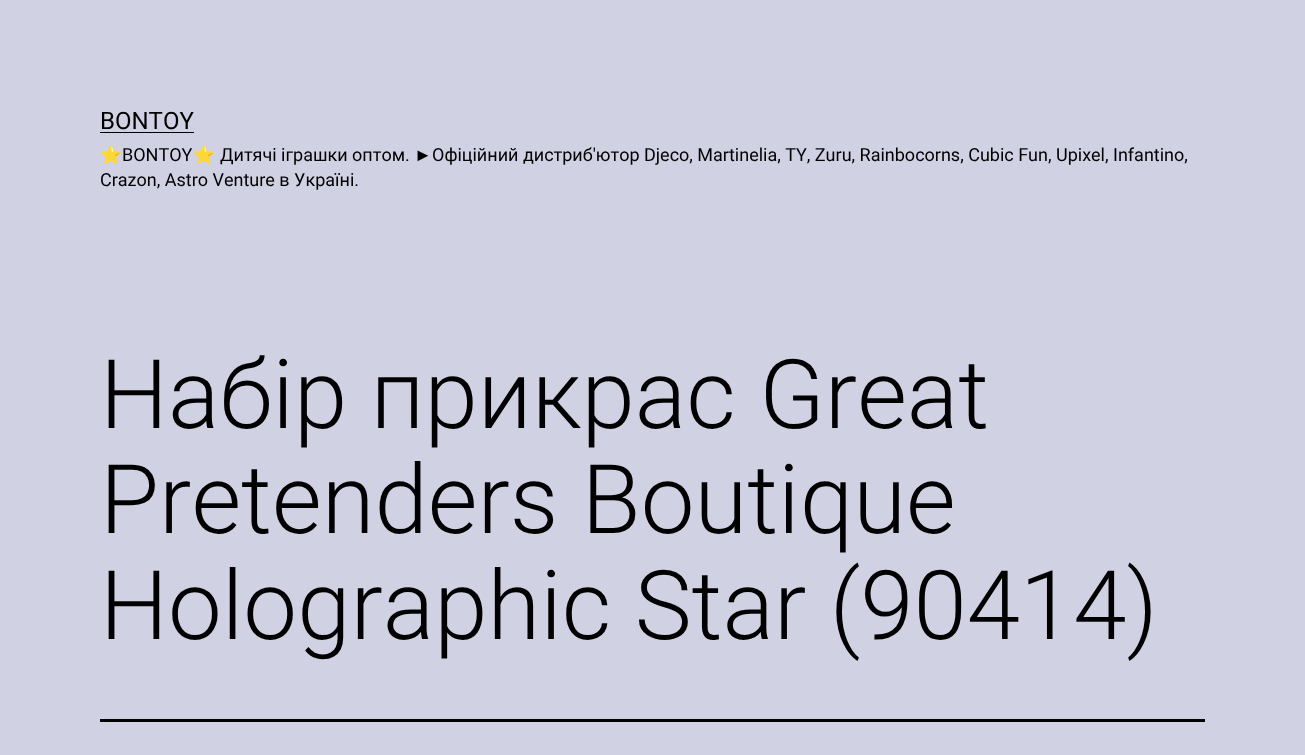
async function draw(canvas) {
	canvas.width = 1305;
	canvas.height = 755;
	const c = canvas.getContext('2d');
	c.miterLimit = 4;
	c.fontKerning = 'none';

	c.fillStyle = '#d1d1e4';
	c.fillRect(0, 0, 1305, 755);
	c.font = '24px Roboto';
	c.fillStyle = '#000';
	c.fillText('BONTOY', 100, 129);
	c.fillRect(100, 132, 94, 1);
	c.font = '18px Noto Color Emoji';
	c.fillText('⭐', 100, 161);
	c.font = '18px Roboto';
	c.fillText('BONTOY', 122, 161);
	c.font = '18px Noto Color Emoji';
	c.fillText('⭐', 193, 161);
	c.font = '18px Roboto';
	c.fillText('Дитячі іграшки оптом.', 220, 161);
	c.font = '18px Liberation Sans';
	c.fillText('►', 414, 161);
	c.font = '18px Roboto';
	c.fillText('Офіційний дистриб\'ютор Djeco, Martinelia, TY, Zuru, Rainbocorns, Cubic Fun, Upixel, Infantino,', 432, 161);
	c.fillText('Crazon, Astro Venture в Україні.', 100, 186);
	c.fillRect(100, 719, 1105, 3);
	c.font = '300 96px Roboto';
	for (const [text, x, y] of [
		['Набір прикрас Great', 100, 428],
		['Pretenders Boutique', 100, 533],
		['Holographic Star (90414)', 100, 639],
	]) {
		c.fillText(text, x, y);
	}
}

draw(document.querySelector('canvas'));
